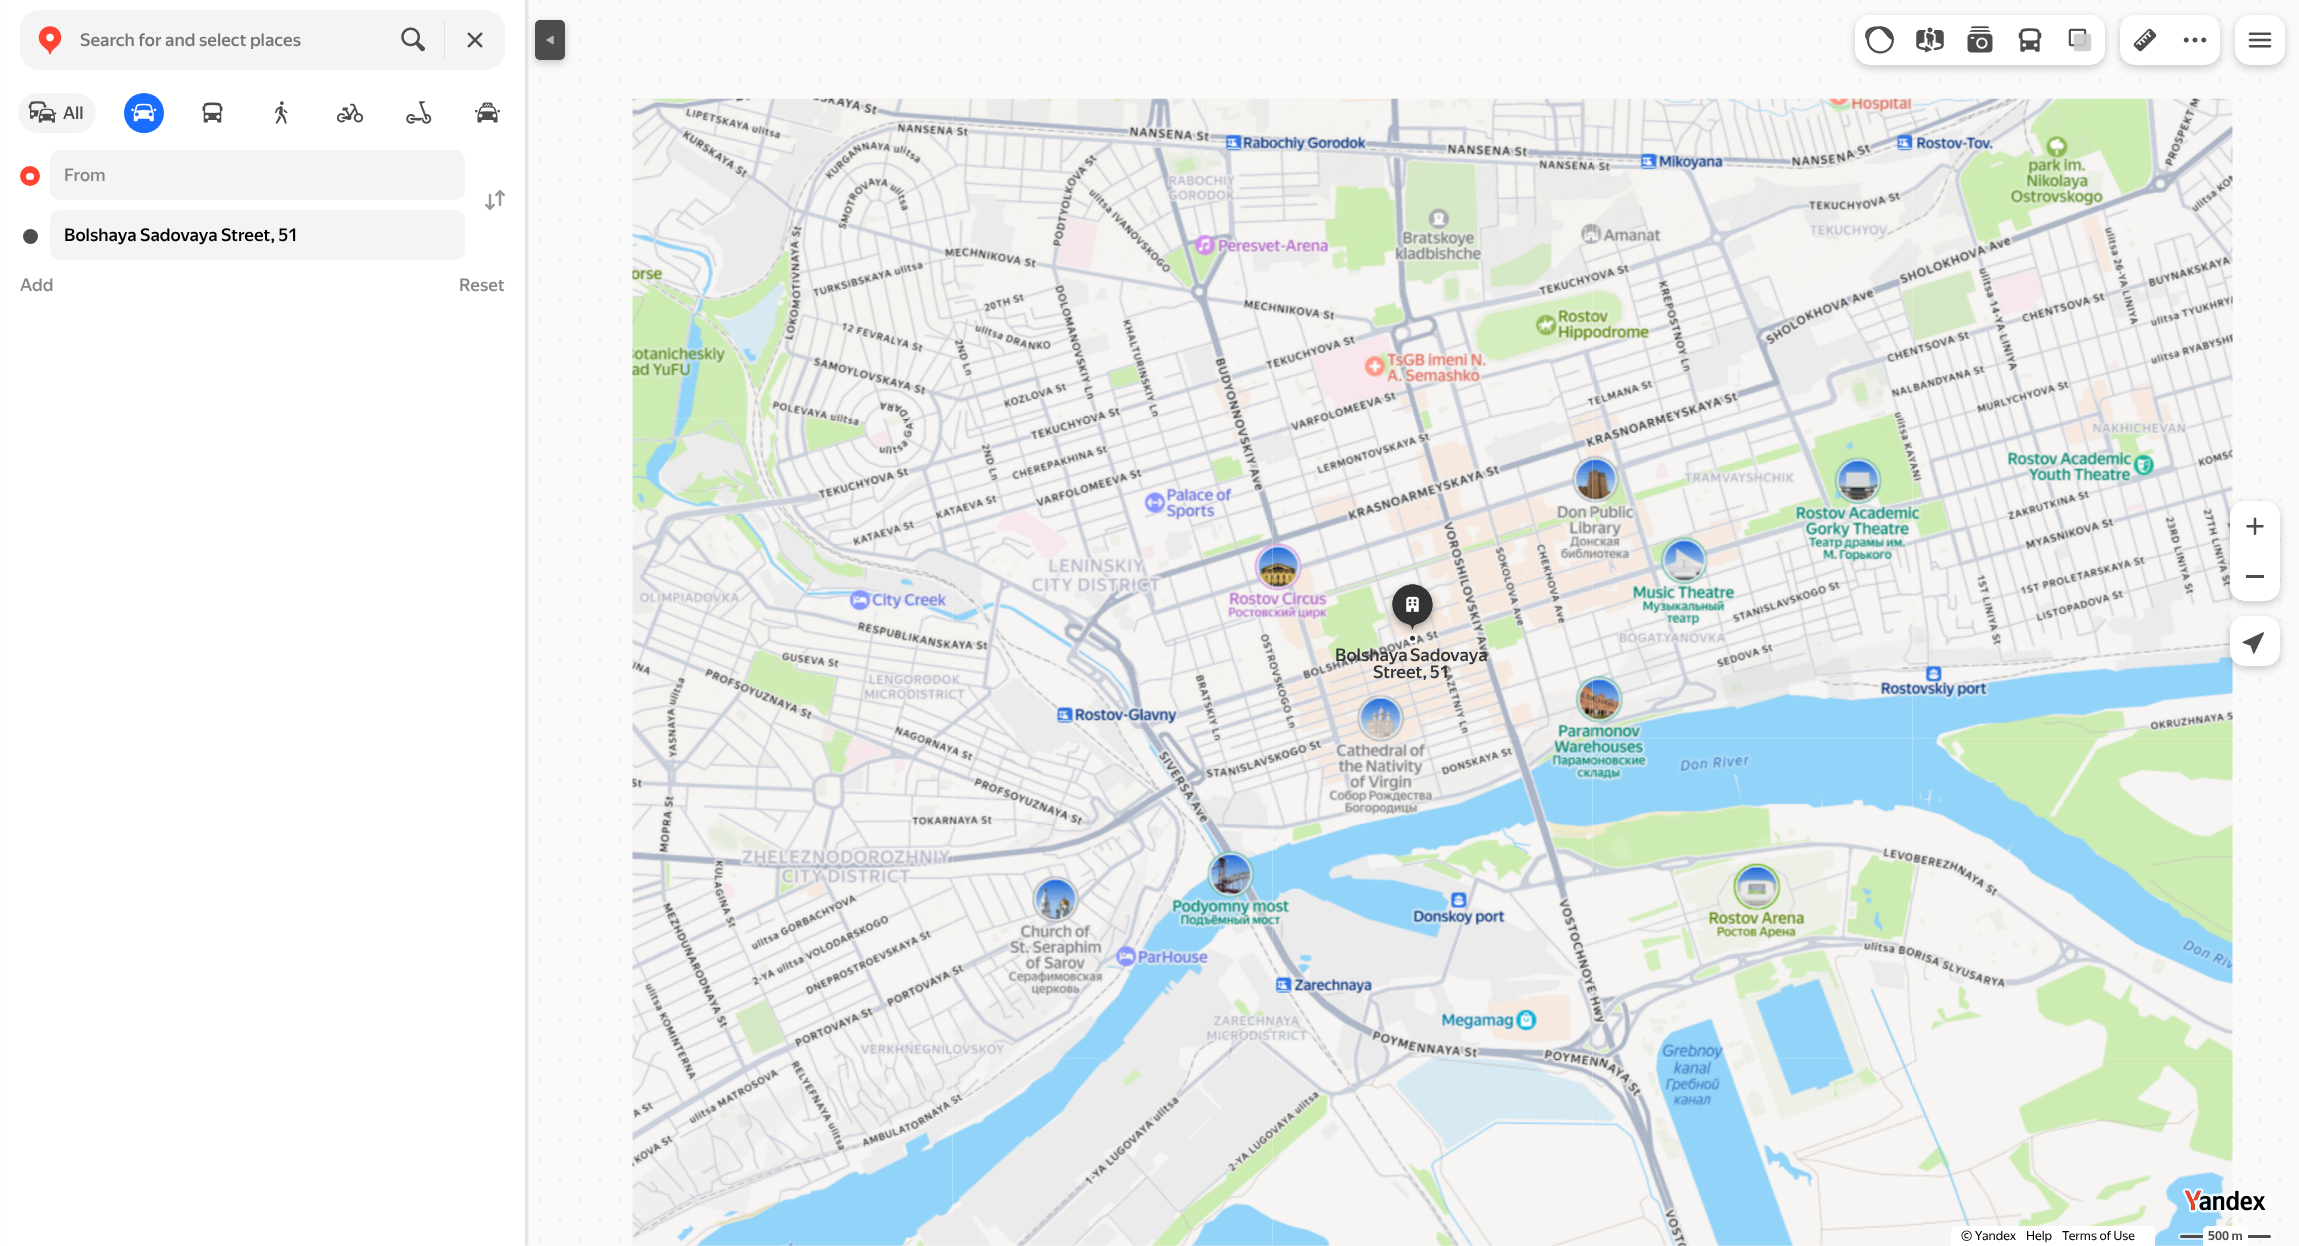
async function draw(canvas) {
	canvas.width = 2299;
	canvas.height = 1246;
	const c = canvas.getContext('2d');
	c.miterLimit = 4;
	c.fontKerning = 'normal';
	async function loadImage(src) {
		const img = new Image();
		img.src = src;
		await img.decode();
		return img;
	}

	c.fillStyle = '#fff';
	c.fillRect(0, 0, 2299, 1246);
	c.drawImage(await loadImage('img1.png'), 525, 0, 1774, 1246);
	c.fillStyle = '#0000001a';
	c.filter = 'blur(1px)';
	c.beginPath();
	c.rect(3, 0, 525, 1246);
	c.fill();
	c.filter = 'none';
	c.fillStyle = '#00000033';
	c.filter = 'blur(4px)';
	c.beginPath();
	c.roundRect(535, 23, 30, 40, 5);
	c.fill();
	c.filter = 'none';
	c.fillStyle = '#fff';
	c.fillRect(2, 0, 523, 1246);
	c.fillStyle = '#f4f4f4';
	c.beginPath();
	c.roundRect(20, 10, 485, 60, 20);
	c.fill();
	c.drawImage(await loadImage('img2.png'), 38, 26, 24, 29);
	c.font = '500 17.5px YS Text';
	c.fillStyle = '#757575';
	c.fillText('Search for and select places', 80, 46);
	c.drawImage(await loadImage('img3.png'), 401, 27, 24, 25);
	c.fillStyle = '#e0e0e0';
	c.fillRect(444, 20, 1, 40);
	c.drawImage(await loadImage('img4.png'), 467, 32, 16, 16);
	c.fillStyle = '#00000033';
	c.filter = 'blur(4px)';
	c.beginPath();
	c.roundRect(1855, 18, 250, 50, 15);
	c.fill();
	c.filter = 'none';
	c.fillStyle = '#fff';
	c.beginPath();
	c.roundRect(1855, 15, 50, 50, [15, 0, 0, 15]);
	c.fill();
	c.drawImage(await loadImage('img5.png'), 1865, 26, 29, 28);
	c.fillRect(1905, 15, 150, 50);
	c.drawImage(await loadImage('img6.png'), 1916, 27, 28, 26);
	c.beginPath();
	c.roundRect(2055, 15, 50, 50, [0, 15, 15, 0]);
	c.fill();
	c.drawImage(await loadImage('img7.png'), 2068, 28, 24, 24);
	c.drawImage(await loadImage('img8.png'), 1967, 26, 26, 27);
	c.drawImage(await loadImage('img9.png'), 2018, 28, 24, 24);
	c.fillStyle = '#00000033';
	c.filter = 'blur(4px)';
	c.beginPath();
	c.roundRect(2120, 18, 100, 50, 15);
	c.fill();
	c.filter = 'none';
	c.fillStyle = '#fff';
	c.beginPath();
	c.roundRect(2120, 15, 50, 50, [15, 0, 0, 15]);
	c.fill();
	c.drawImage(await loadImage('img10.png'), 2133, 28, 24, 24);
	c.beginPath();
	c.roundRect(2170, 15, 50, 50, [0, 15, 15, 0]);
	c.fill();
	c.drawImage(await loadImage('img11.png'), 2183, 37, 24, 6);
	c.fillStyle = '#00000033';
	c.filter = 'blur(4px)';
	c.beginPath();
	c.roundRect(2235, 18, 50, 50, 15);
	c.fill();
	c.filter = 'none';
	c.fillStyle = '#fff';
	c.beginPath();
	c.roundRect(2235, 15, 50, 50, 15);
	c.fill();
	c.drawImage(await loadImage('img12.png'), 2248, 32, 24, 16);
	c.drawImage(await loadImage('img26.png'), 952, 98, 321, 321);
	c.drawImage(await loadImage('img27.png'), 1272, 98, 321, 321);
	c.drawImage(await loadImage('img28.png'), 1592, 98, 321, 321);
	c.drawImage(await loadImage('img31.png'), 952, 418, 321, 321);
	c.drawImage(await loadImage('img32.png'), 1272, 418, 321, 321);
	c.drawImage(await loadImage('img33.png'), 1592, 418, 321, 321);
	c.drawImage(await loadImage('img29.png'), 1912, 98, 321, 321);
	c.drawImage(await loadImage('img36.png'), 952, 738, 321, 321);
	c.drawImage(await loadImage('img37.png'), 1272, 738, 321, 321);
	c.drawImage(await loadImage('img38.png'), 1592, 738, 321, 321);
	c.drawImage(await loadImage('img34.png'), 1912, 418, 321, 321);
	c.fillStyle = '#00000033';
	c.filter = 'blur(4px)';
	c.beginPath();
	c.roundRect(2230, 504, 50, 100, 15);
	c.fill();
	c.filter = 'none';
	c.fillStyle = '#fff';
	c.beginPath();
	c.roundRect(2230, 501, 50, 50, [15, 15, 0, 0]);
	c.fill();
	c.drawImage(await loadImage('img13.png'), 2246, 517, 18, 18);
	c.beginPath();
	c.roundRect(2230, 551, 50, 50, [0, 0, 15, 15]);
	c.fill();
	c.fillStyle = '#4d4d4d';
	c.fillRect(2246, 575, 18, 3);
	c.fillStyle = '#00000033';
	c.filter = 'blur(4px)';
	c.beginPath();
	c.roundRect(2230, 619, 50, 50, 15);
	c.fill();
	c.filter = 'none';
	c.fillStyle = '#fff';
	c.beginPath();
	c.roundRect(2230, 616, 50, 50, 15);
	c.fill();
	c.drawImage(await loadImage('img14.png'), 2242, 632, 22, 22);
	c.fillStyle = '#4d4d4d';
	c.beginPath();
	c.roundRect(535, 20, 30, 40, 5);
	c.fill();
	c.drawImage(await loadImage('img15.png'), 546, 35, 8, 10);
	c.fillStyle = '#f4f4f4';
	c.beginPath();
	c.roundRect(18, 93, 78, 40, 20);
	c.fill();
	c.drawImage(await loadImage('img16.png'), 28, 101, 29, 22);
	c.fillStyle = '#4d4d4d';
	c.fillText('All', 63, 119);
	c.fillStyle = '#196dff';
	c.beginPath();
	c.arc(144, 113, 20, 0, 2 * Math.PI);
	c.fill();
	c.drawImage(await loadImage('img17.png'), 131, 103, 26, 19);
	c.drawImage(await loadImage('img18.png'), 202, 102, 21, 21);
	c.drawImage(await loadImage('img19.png'), 275, 101, 13, 23);
	c.drawImage(await loadImage('img20.png'), 336, 103, 28, 20);
	c.drawImage(await loadImage('img21.png'), 406, 101, 26, 23);
	c.drawImage(await loadImage('img22.png'), 475, 102, 25, 21);
	c.fillStyle = '#f43';
	c.beginPath();
	c.arc(30, 176, 8.5, 0, 2 * Math.PI);
	c.fill();
	c.strokeStyle = '#f43';
	c.lineWidth = 3;
	c.stroke();
	c.fillStyle = '#fff';
	c.beginPath();
	c.roundRect(26, 173, 8, 7, 3.5);
	c.fill();
	c.fillStyle = '#f4f4f4';
	c.beginPath();
	c.roundRect(50, 150, 415, 50, 10);
	c.fill();
	c.fillStyle = '#878787';
	c.fillText('From', 64, 181);
	c.fillStyle = '#4d4d4d';
	c.beginPath();
	c.arc(30.5, 236.5, 7.5, 0, 2 * Math.PI);
	c.fill();
	c.fillStyle = '#f4f4f4';
	c.beginPath();
	c.roundRect(50, 210, 415, 50, 10);
	c.fill();
	c.fillStyle = '#000';
	c.fillText('Bolshaya Sadovaya Street, 51', 64, 241);
	c.drawImage(await loadImage('img23.png'), 485, 190, 20, 20);
	c.fillStyle = '#878787';
	c.fillText('Add', 20, 291);
	c.fillText('Reset', 459, 291);
	c.drawImage(await loadImage('img39.png'), 1912, 738, 321, 321);
	c.drawImage(await loadImage('img42.png'), 1272, 1058, 321, 188);
	c.drawImage(await loadImage('img43.png'), 1592, 1058, 321, 188);
	c.drawImage(await loadImage('img44.png'), 1912, 1058, 321, 188);
	c.drawImage(await loadImage('img24.png'), 2182, 1188, 84, 25);
	c.fillStyle = '#fff';
	c.beginPath();
	c.roundRect(1951, 1226, 204, 20, [5, 5, 0, 0]);
	c.fill();
	c.font = '12.5px YS Text';
	c.fillStyle = '#000';
	for (const [text, x, y] of [
		['© Yandex', 1961, 1240],
		['Help', 2026, 1240],
		['Terms of Use', 2062, 1240],
	]) {
		c.fillText(text, x, y);
	}
	c.fillStyle = '#ffffff99';
	c.beginPath();
	c.roundRect(2178, 1233, 96, 7, 3.5);
	c.fill();
	c.fillStyle = '#4d4d4d';
	c.beginPath();
	c.roundRect(2180, 1235, 91, 3, 1.5);
	c.fill();
	c.fillStyle = '#fff';
	c.beginPath();
	c.roundRect(2203, 1226, 45, 20, [5, 5, 0, 0]);
	c.fill();
	c.font = 'bold 12.5px YS Text';
	c.fillStyle = '#4d4d4d';
	c.fillText('500 m', 2208, 1240);
	c.drawImage(await loadImage('img30.png'), 632, 418, 321, 321);
	c.drawImage(await loadImage('img25.png'), 632, 98, 321, 321);
	c.drawImage(await loadImage('img35.png'), 632, 738, 321, 321);
	c.drawImage(await loadImage('img40.png'), 632, 1058, 321, 188);
	c.drawImage(await loadImage('img41.png'), 952, 1058, 321, 188);
	c.drawImage(await loadImage('img45.png'), 1387, 582, 51, 61);
	c.drawImage(await loadImage('img46.png'), 1406, 596, 13, 16);
	c.font = '500 17.5px YS Text';
	c.fillStyle = '#333';
	for (const [text, x, y] of [
		['Bolshaya', 1335, 661],
		['Sadovaya', 1410, 661],
		['Street,', 1373, 678],
		['51', 1430, 678],
	]) {
		c.fillText(text, x, y);
	}
}

draw(document.querySelector('canvas'));
